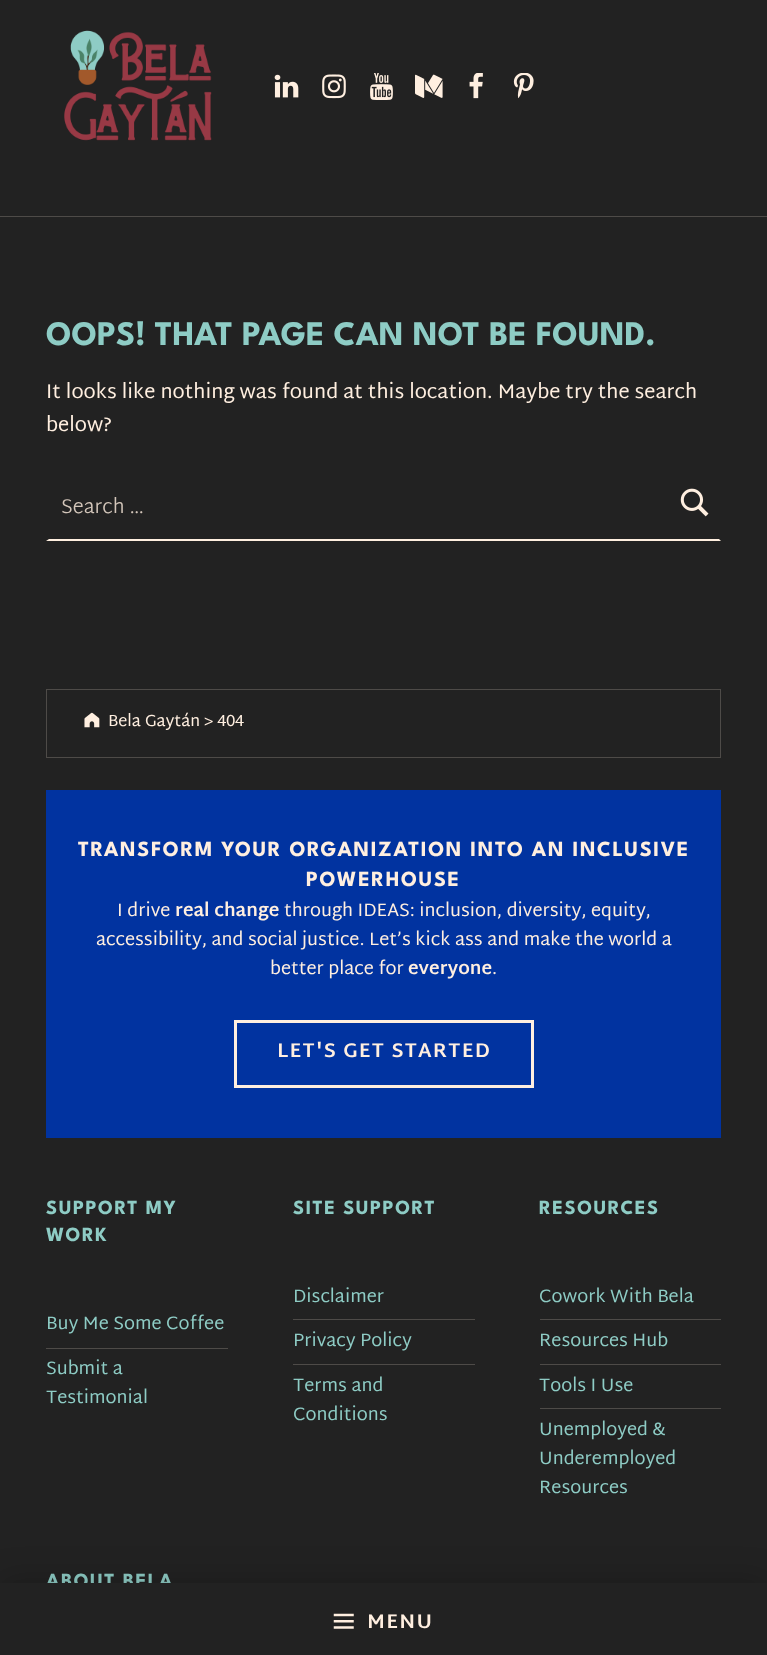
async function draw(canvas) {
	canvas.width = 767;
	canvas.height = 1655;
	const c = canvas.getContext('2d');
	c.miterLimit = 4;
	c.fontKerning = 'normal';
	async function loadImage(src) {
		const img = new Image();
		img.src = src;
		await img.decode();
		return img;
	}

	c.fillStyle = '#222';
	c.fillRect(0, 0, 767, 1655);
	c.font = 'bold 34.4px League Spartan';
	c.fillStyle = '#8eccc5';
	c.fillText('OOPS! THAT PAGE CAN NOT BE FOUND.', 46, 345);
	c.font = '20px Martel Sans';
	c.fillStyle = '#ffefe0';
	c.fillText('It looks like nothing was found at this location. Maybe try the search', 46, 398);
	c.fillText('below?', 46, 431);
	c.beginPath();
	c.moveTo(721, 541);
	c.lineTo(46, 541);
	c.lineTo(49, 539);
	c.lineTo(719, 539);
	c.closePath();
	c.fill();
	c.font = '300 20px Martel Sans';
	c.fillStyle = '#d3c6ba';
	c.fillText('Search …', 61, 513);
	c.drawImage(await loadImage('img1.png'), 680, 488, 29, 29);
	c.strokeStyle = '#4e4b48';
	c.strokeRect(46.5, 689.5, 674, 68);
	c.drawImage(await loadImage('img2.png'), 84, 712, 16, 16);
	c.font = '16.25px Martel Sans';
	c.fillStyle = '#ffefe0';
	c.fillText('Bela Gaytán > 404', 108, 726);
	c.fillStyle = '#0133a0';
	c.fillRect(46, 790, 675, 348);
	c.letterSpacing = '1.6px';
	c.font = 'bold 21.55px League Spartan';
	c.fillStyle = '#ffefe0';
	c.fillText('TRANSFORM YOUR ORGANIZATION INTO AN INCLUSIVE', 78, 856);
	c.fillText('POWERHOUSE', 306, 886);
	c.letterSpacing = '0px';
	c.font = '18.1px Martel Sans';
	c.fillText('I drive', 117, 916);
	c.font = 'bold 18.1px Martel Sans';
	c.fillText('real change', 175, 916);
	c.font = '18.1px Martel Sans';
	for (const [text, x, y] of [
		['through IDEAS: inclusion, diversity, equity,', 284, 916],
		['accessibility, and social justice. Let’s kick ass and make the world a', 96, 945],
		['better place for', 270, 974],
	]) {
		c.fillText(text, x, y);
	}
	c.font = 'bold 18.1px Martel Sans';
	c.fillText('everyone', 408, 974);
	c.font = '18.1px Martel Sans';
	c.fillText('.', 492, 974);
	c.strokeStyle = '#ffefe0';
	c.lineWidth = 3;
	c.strokeRect(235.5, 1021.5, 297, 65);
	c.letterSpacing = '1.25px';
	c.font = 'bold 20px Martel Sans';
	c.fillText('LET\'S GET STARTED', 277, 1057);
	c.letterSpacing = '1.5px';
	c.font = 'bold 20px League Spartan';
	c.fillStyle = '#8eccc5';
	c.fillText('SUPPORT MY', 46, 1214);
	c.fillText('WORK', 46, 1241);
	c.letterSpacing = '0px';
	c.font = '18.1px Martel Sans';
	c.fillText('Buy Me Some Coffee', 46, 1329);
	c.fillStyle = '#4e4b48';
	c.fillRect(46, 1348, 182, 1);
	c.fillStyle = '#8eccc5';
	c.fillText('Submit a', 46, 1374);
	c.fillText('Testimonial', 46, 1403);
	c.letterSpacing = '1.5px';
	c.font = 'bold 20px League Spartan';
	c.fillText('SITE SUPPORT', 293, 1214);
	c.letterSpacing = '0px';
	c.font = '18.1px Martel Sans';
	c.fillText('Disclaimer', 293, 1302);
	c.fillStyle = '#4e4b48';
	c.fillRect(293, 1319, 182, 1);
	c.fillStyle = '#8eccc5';
	c.fillText('Privacy Policy', 293, 1346);
	c.fillStyle = '#4e4b48';
	c.fillRect(293, 1364, 182, 1);
	c.fillStyle = '#8eccc5';
	c.fillText('Terms and', 293, 1391);
	c.fillText('Conditions', 293, 1420);
	c.letterSpacing = '1.5px';
	c.font = 'bold 20px League Spartan';
	c.fillText('RESOURCES', 539, 1214);
	c.letterSpacing = '0px';
	c.font = '18.1px Martel Sans';
	c.fillText('Cowork With Bela', 539, 1302);
	c.fillStyle = '#4e4b48';
	c.fillRect(540, 1319, 181, 1);
	c.fillStyle = '#8eccc5';
	c.fillText('Resources Hub', 539, 1346);
	c.fillStyle = '#4e4b48';
	c.fillRect(540, 1364, 181, 1);
	c.fillStyle = '#8eccc5';
	c.fillText('Tools I Use', 539, 1391);
	c.fillStyle = '#4e4b48';
	c.fillRect(540, 1408, 181, 1);
	c.fillStyle = '#8eccc5';
	for (const [text, x, y] of [
		['Unemployed &', 539, 1435],
		['Underemployed', 539, 1464],
		['Resources', 539, 1493],
	]) {
		c.fillText(text, x, y);
	}
	c.letterSpacing = '1.5px';
	c.font = 'bold 20px League Spartan';
	c.fillText('ABOUT BELA', 46, 1587);
	c.fillStyle = '#4e4b48';
	c.fillRect(0, 216, 767, 1);
	c.drawImage(await loadImage('img3.png'), 64, 30, 148, 111);
	c.drawImage(await loadImage('img4.png'), 274, 74, 25, 24);
	c.drawImage(await loadImage('img5.png'), 322, 74, 24, 25);
	c.drawImage(await loadImage('img6.png'), 370, 73, 23, 27);
	c.drawImage(await loadImage('img7.png'), 415, 74, 28, 24);
	c.drawImage(await loadImage('img8.png'), 469, 73, 14, 26);
	c.drawImage(await loadImage('img9.png'), 513, 73, 21, 26);
	c.fillStyle = '#00000033';
	c.filter = 'blur(16px)';
	c.beginPath();
	c.rect(0, 1580, 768, 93);
	c.fill();
	c.filter = 'none';
	c.fillStyle = '#222';
	c.fillRect(0, 1583, 767, 72);
	c.drawImage(await loadImage('img10.png'), 333, 1613, 21, 16);
	c.letterSpacing = '1.25px';
	c.font = 'bold 20px Martel Sans';
	c.fillStyle = '#ffefe0';
	c.fillText('MENU', 367, 1628);
}

draw(document.querySelector('canvas'));
